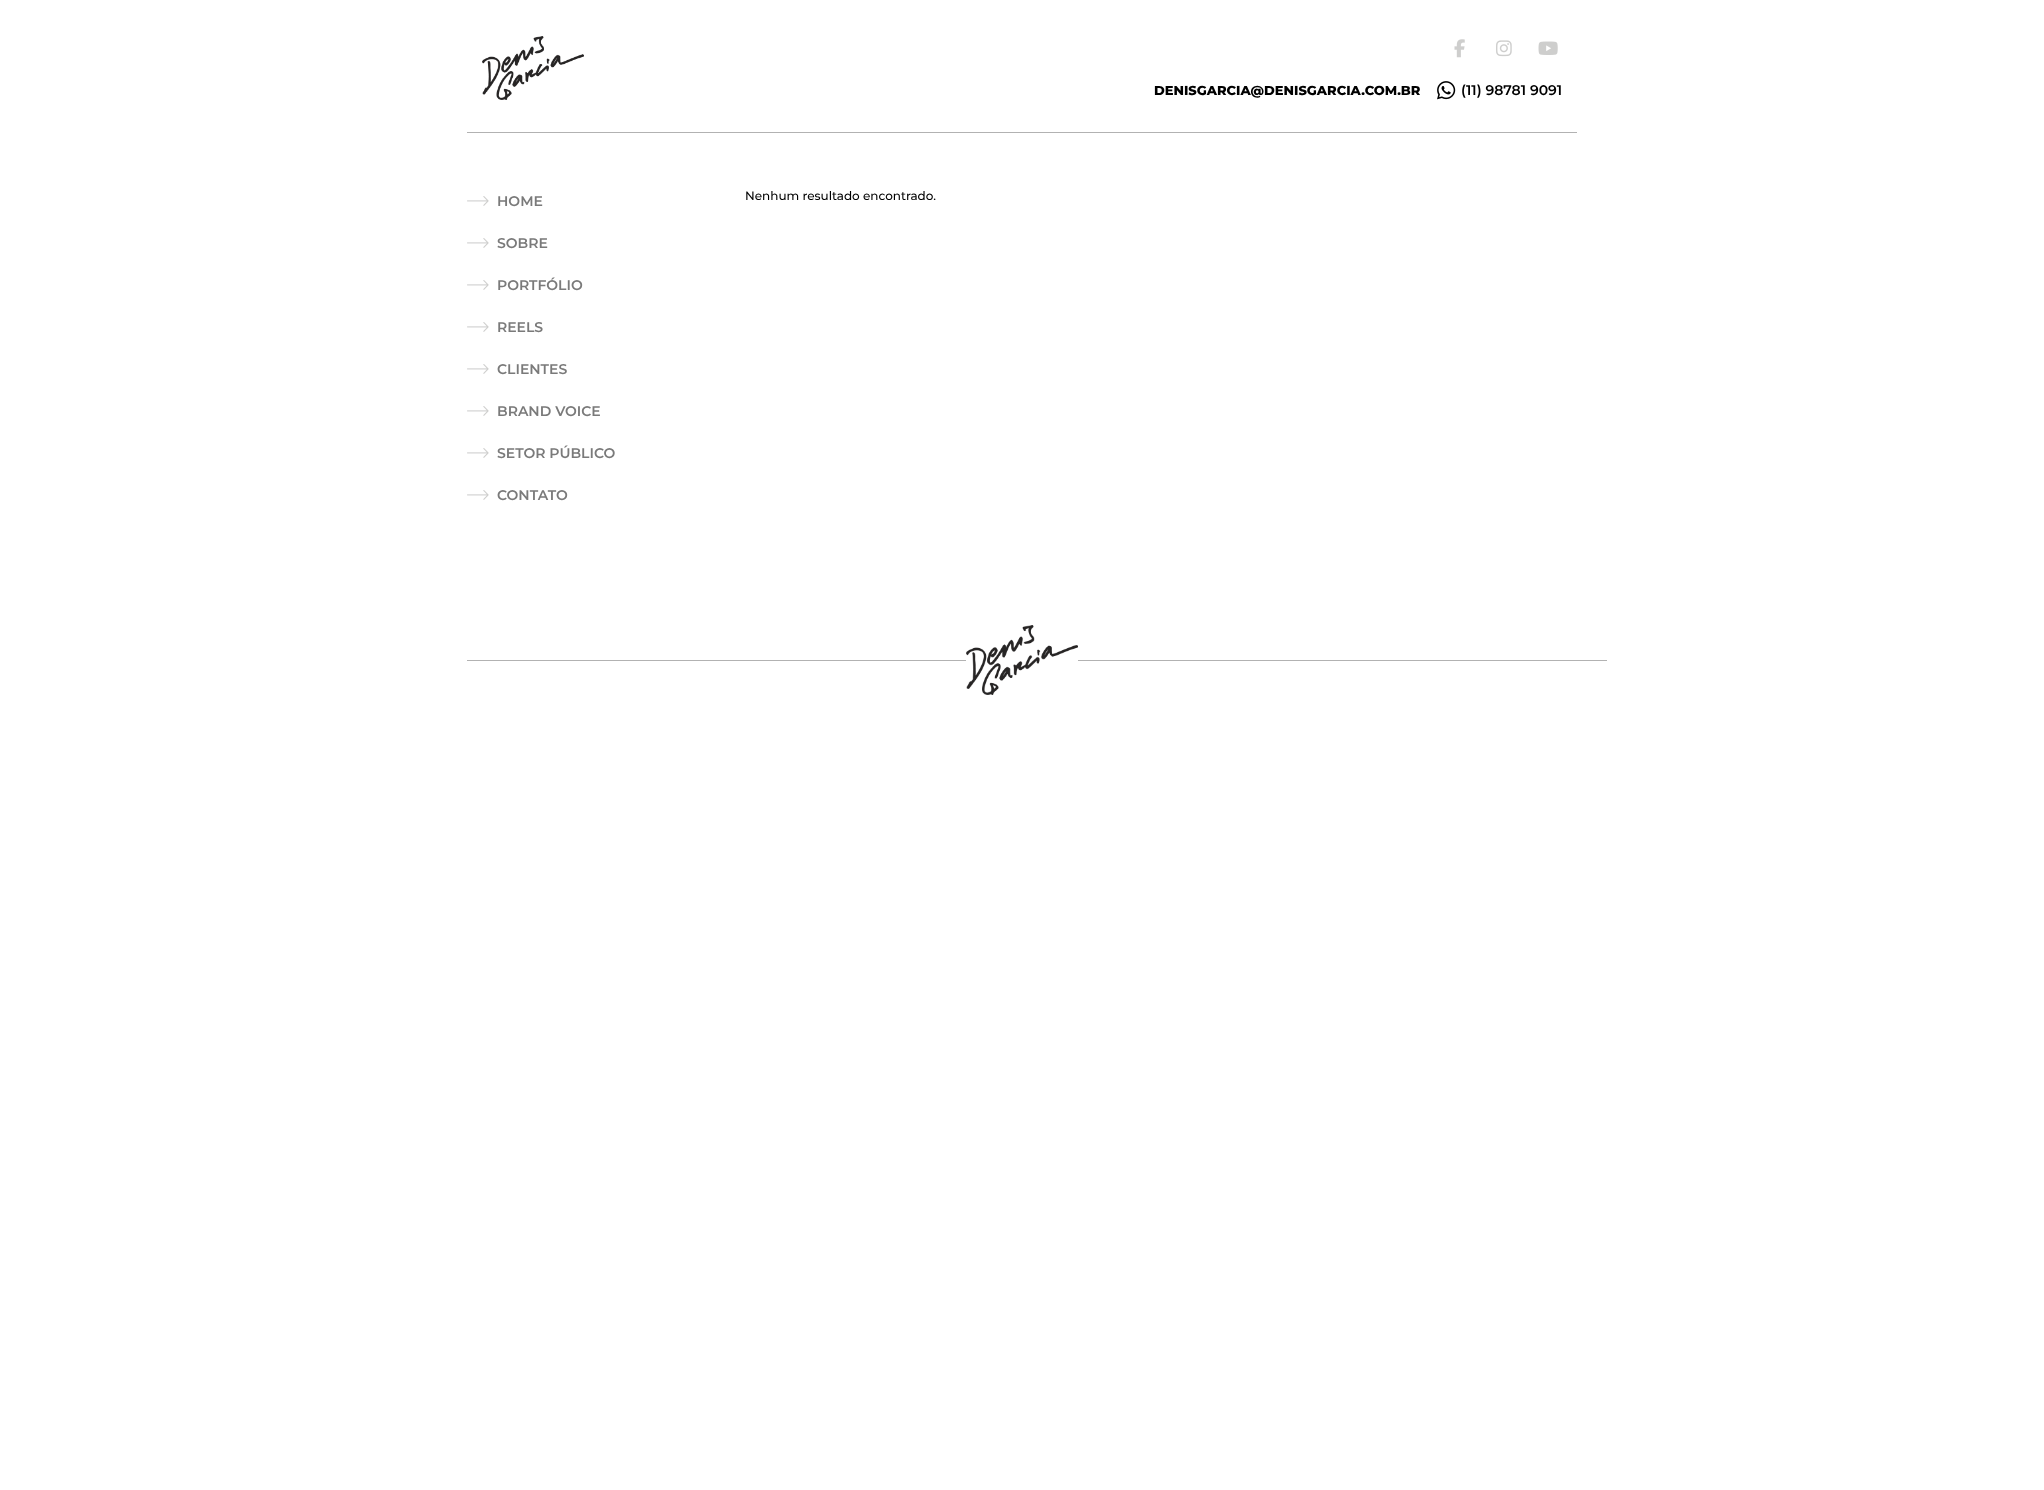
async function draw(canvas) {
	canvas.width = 2044;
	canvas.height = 1490;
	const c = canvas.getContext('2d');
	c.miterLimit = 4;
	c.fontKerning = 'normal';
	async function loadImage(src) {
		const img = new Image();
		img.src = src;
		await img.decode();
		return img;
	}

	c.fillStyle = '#fff';
	c.fillRect(0, 0, 2044, 1490);
	c.fillStyle = '#b2b2b2';
	c.fillRect(467, 132, 1110, 1);
	c.drawImage(await loadImage('img1.png'), 482, 36, 102, 64);
	c.drawImage(await loadImage('img2.png'), 1454, 39, 11, 19);
	c.drawImage(await loadImage('img3.png'), 1496, 40, 16, 17);
	c.drawImage(await loadImage('img4.png'), 1538, 41, 20, 14);
	c.font = '800 13px Montserrat';
	c.fillStyle = '#000';
	c.fillText('DENISGARCIA@DENISGARCIA.COM.BR', 1154, 95);
	c.drawImage(await loadImage('img5.png'), 1437, 81, 19, 19);
	c.font = '600 14px Montserrat';
	c.fillText('(11) 98781 9091', 1461, 95);
	c.drawImage(await loadImage('img6.png'), 467, 196, 22, 10);
	c.fillStyle = '#7a7a7a';
	c.fillText('HOME', 497, 206);
	c.drawImage(await loadImage('img6.png'), 467, 238, 22, 10);
	c.fillText('SOBRE', 497, 248);
	c.drawImage(await loadImage('img6.png'), 467, 280, 22, 10);
	c.fillText('PORTFÓLIO', 497, 290);
	c.drawImage(await loadImage('img6.png'), 467, 322, 22, 10);
	c.fillText('REELS', 497, 332);
	c.drawImage(await loadImage('img6.png'), 467, 364, 22, 10);
	c.fillText('CLIENTES', 497, 374);
	c.drawImage(await loadImage('img6.png'), 467, 406, 22, 10);
	c.fillText('BRAND VOICE', 497, 416);
	c.drawImage(await loadImage('img6.png'), 467, 448, 22, 10);
	c.fillText('SETOR PÚBLICO', 497, 458);
	c.drawImage(await loadImage('img6.png'), 467, 490, 22, 10);
	c.fillText('CONTATO', 497, 500);
	c.font = '500 12px Montserrat';
	c.fillStyle = '#000';
	c.fillText('Nenhum resultado encontrado.', 745, 200);
	c.fillStyle = '#b2b2b2';
	c.fillRect(467, 660, 1140, 1);
	c.fillStyle = '#fff';
	c.fillRect(966, 660, 112, 1);
	c.drawImage(await loadImage('img7.png'), 966, 625, 112, 70);
}

draw(document.querySelector('canvas'));
